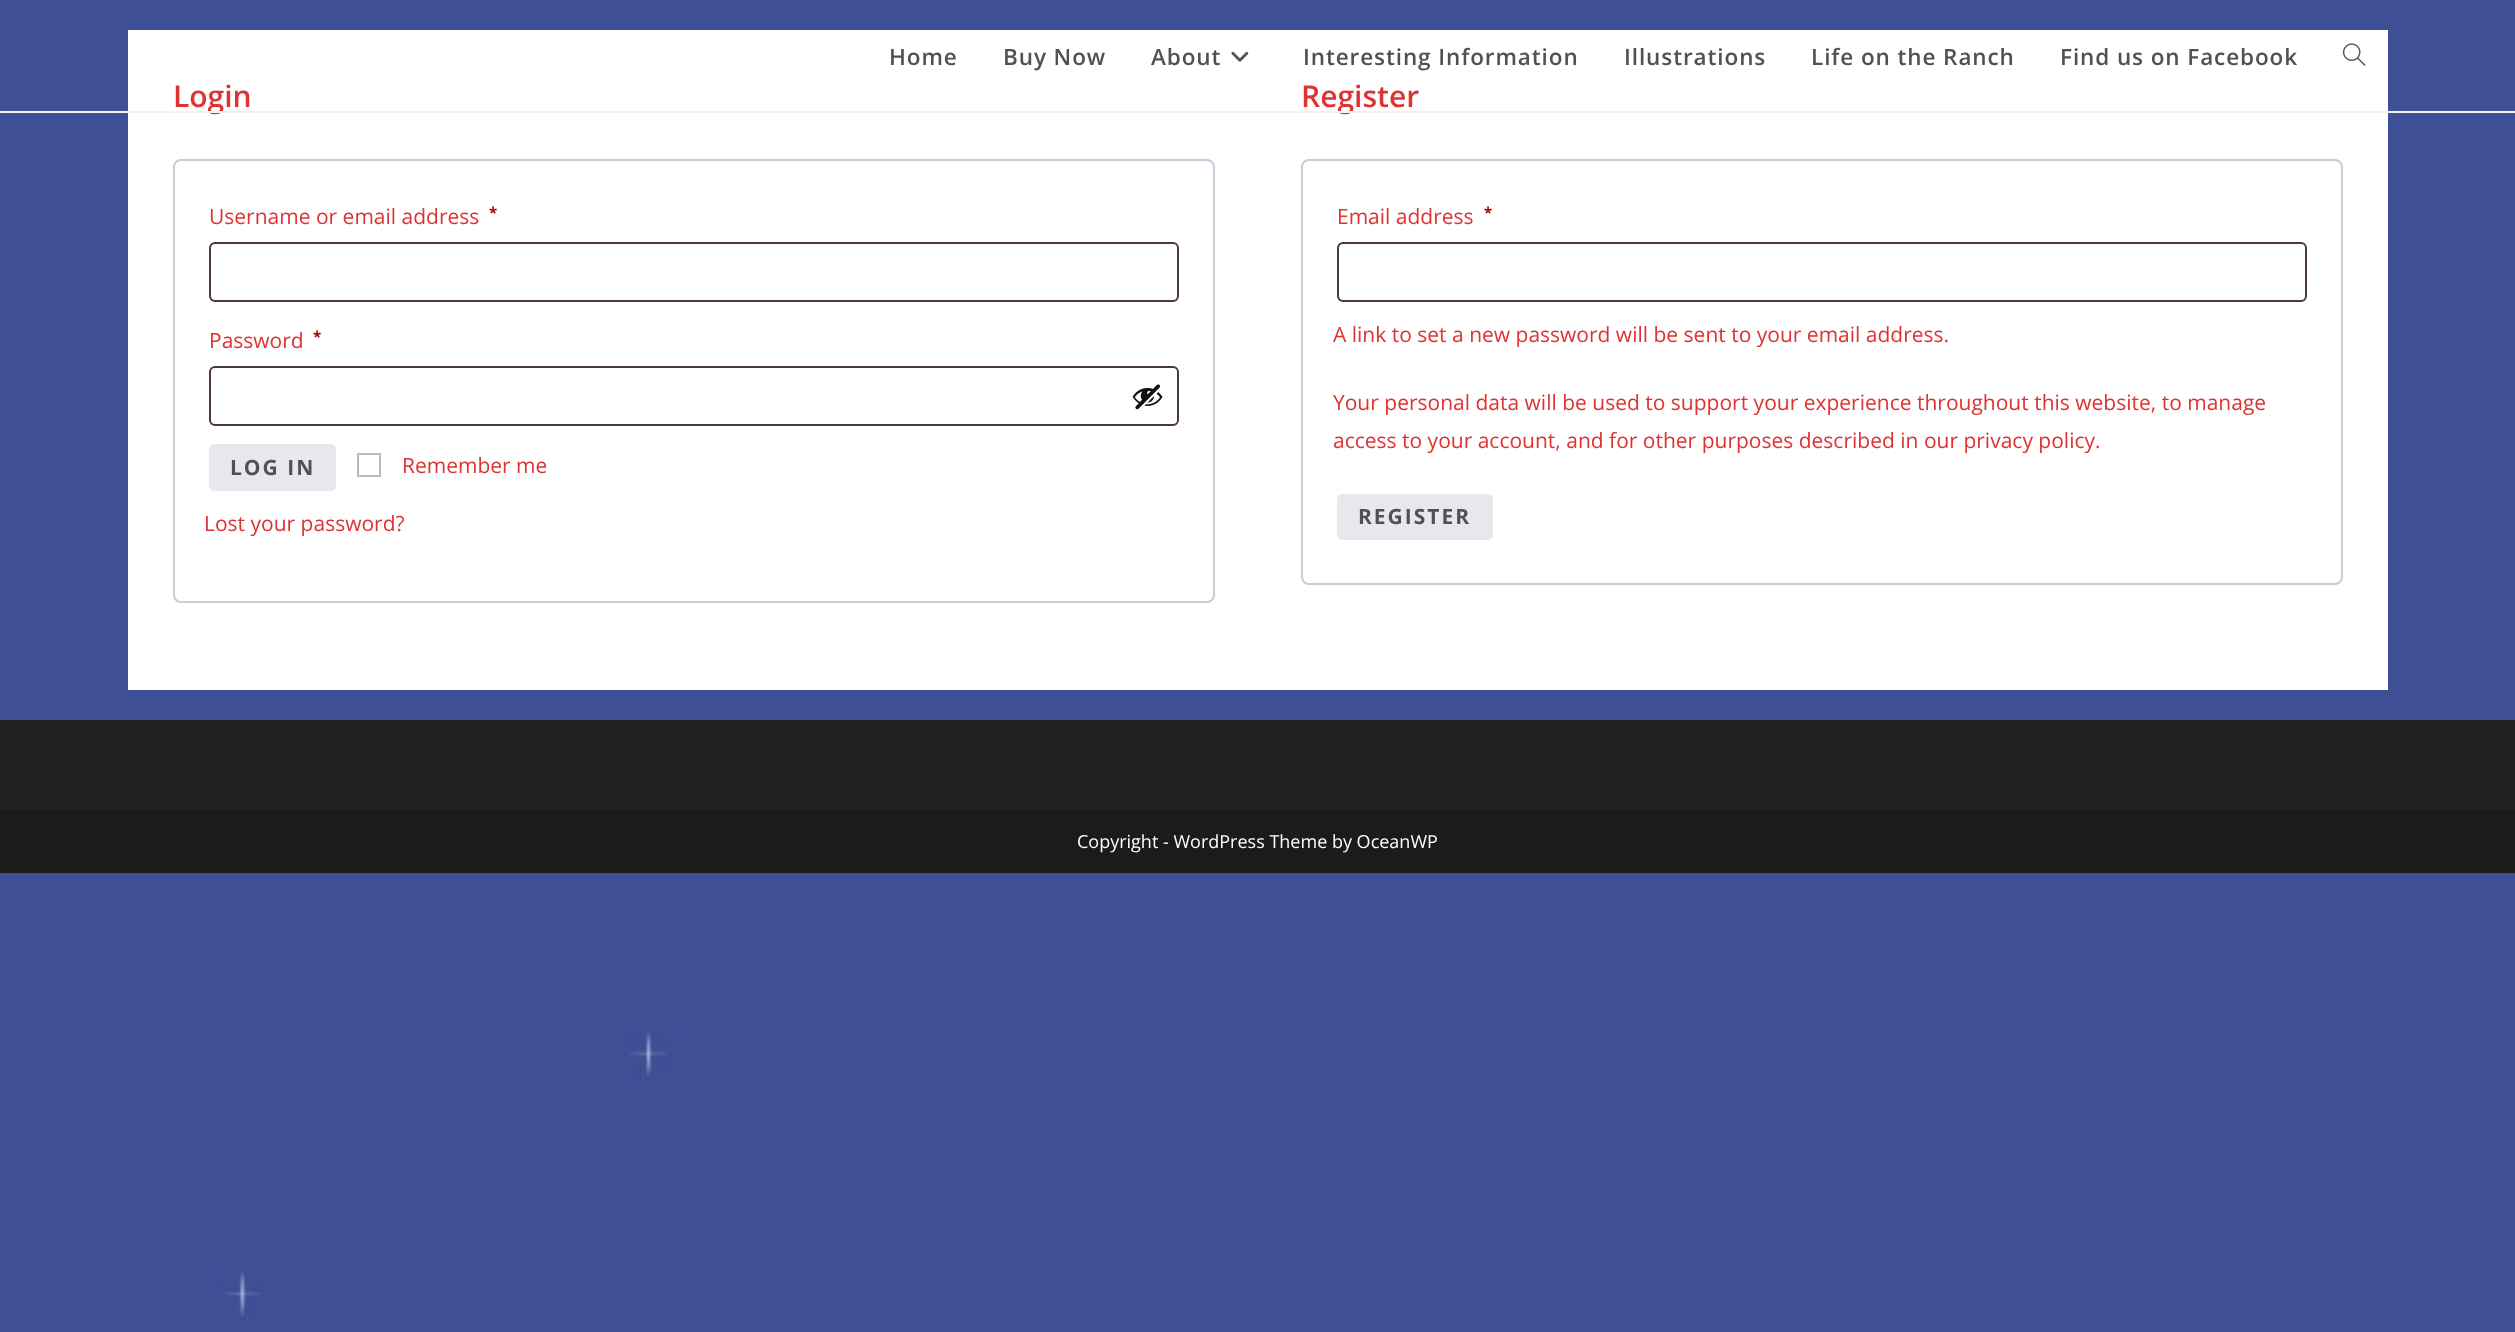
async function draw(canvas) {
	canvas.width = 2515;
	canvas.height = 1332;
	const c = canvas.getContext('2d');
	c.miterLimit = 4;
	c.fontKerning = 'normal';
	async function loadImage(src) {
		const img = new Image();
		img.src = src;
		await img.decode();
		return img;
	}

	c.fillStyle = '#fff';
	c.fillRect(0, 0, 2515, 1332);
	c.drawImage(await loadImage('img1.png'), 0, 0, 2515, 1332);
	c.fillRect(128, 30, 2260, 660);
	c.font = '600 30px Open Sans';
	c.fillStyle = '#d33';
	c.fillText('Login', 173, 107);
	c.fillText('Register', 1301, 107);
	c.fillStyle = '#f1f1f1';
	c.fillRect(0, 111, 2515, 2);
	c.letterSpacing = '0.9px';
	c.font = '600 22.5px Open Sans';
	c.fillStyle = '#515151';
	for (const [text, x, y] of [
		['Home', 889, 65],
		['Buy Now', 1003, 65],
		['About', 1151, 65],
	]) {
		c.fillText(text, x, y);
	}
	c.drawImage(await loadImage('img2.png'), 1231, 51, 18, 11);
	for (const [text, x, y] of [
		['Interesting Information', 1303, 65],
		['Illustrations', 1624, 65],
		['Life on the Ranch', 1811, 65],
		['Find us on Facebook', 2060, 65],
	]) {
		c.fillText(text, x, y);
	}
	c.drawImage(await loadImage('img3.png'), 2342, 43, 24, 23);
	c.beginPath();
	c.roundRect(174, 160, 1040, 442, 7);
	c.strokeStyle = '#cfc8d8';
	c.lineWidth = 2;
	c.stroke();
	c.letterSpacing = '0px';
	c.font = '21px Open Sans';
	c.fillStyle = '#d33';
	c.fillText('Username or email address', 209, 224);
	c.font = 'bold 15px Open Sans';
	c.fillStyle = '#a00';
	c.fillText('*', 489, 218);
	c.beginPath();
	c.roundRect(210, 243, 968, 58, 5);
	c.strokeStyle = '#4d3939';
	c.stroke();
	c.font = '21px Open Sans';
	c.fillStyle = '#d33';
	c.fillText('Password', 209, 348);
	c.font = 'bold 15px Open Sans';
	c.fillStyle = '#a00';
	c.fillText('*', 313, 342);
	c.beginPath();
	c.roundRect(210, 367, 968, 58, 5);
	c.stroke();
	c.drawImage(await loadImage('img4.png'), 1132, 384, 31, 26);
	c.fillStyle = '#e9e6ed';
	c.beginPath();
	c.roundRect(209, 444, 127, 47, 5);
	c.fill();
	c.letterSpacing = '2px';
	c.font = 'bold 21px Open Sans';
	c.fillStyle = '#515151';
	c.fillText('LOG IN', 230, 475);
	c.strokeStyle = '#bbb';
	c.strokeRect(358, 454, 22, 22);
	c.letterSpacing = '0px';
	c.font = '21px Open Sans';
	c.fillStyle = '#d33';
	c.fillText('Remember me', 402, 473);
	c.fillText('Lost your password?', 204, 531);
	c.beginPath();
	c.roundRect(1302, 160, 1040, 424, 7);
	c.strokeStyle = '#cfc8d8';
	c.stroke();
	c.fillText('Email address', 1337, 224);
	c.font = 'bold 15px Open Sans';
	c.fillStyle = '#a00';
	c.fillText('*', 1484, 218);
	c.beginPath();
	c.roundRect(1338, 243, 968, 58, 5);
	c.strokeStyle = '#4d3939';
	c.stroke();
	c.font = '21px Open Sans';
	c.fillStyle = '#d33';
	for (const [text, x, y] of [
		['A link to set a new password will be sent to your email address.', 1333, 342],
		['Your personal data will be used to support your experience throughout this website, to manage', 1333, 410],
		['access to your account, and for other purposes described in our privacy policy.', 1333, 448],
	]) {
		c.fillText(text, x, y);
	}
	c.fillStyle = '#e9e6ed';
	c.beginPath();
	c.roundRect(1337, 494, 156, 46, 5);
	c.fill();
	c.letterSpacing = '2px';
	c.font = 'bold 21px Open Sans';
	c.fillStyle = '#515151';
	c.fillText('REGISTER', 1358, 524);
	c.fillStyle = '#222';
	c.fillRect(0, 720, 2515, 90);
	c.fillStyle = '#1b1b1b';
	c.fillRect(0, 810, 2515, 63);
	c.letterSpacing = '0px';
	c.font = '18px Open Sans';
	c.fillStyle = '#fff';
	c.fillText('Copyright - WordPress Theme by OceanWP', 1077, 848);
}

draw(document.querySelector('canvas'));
